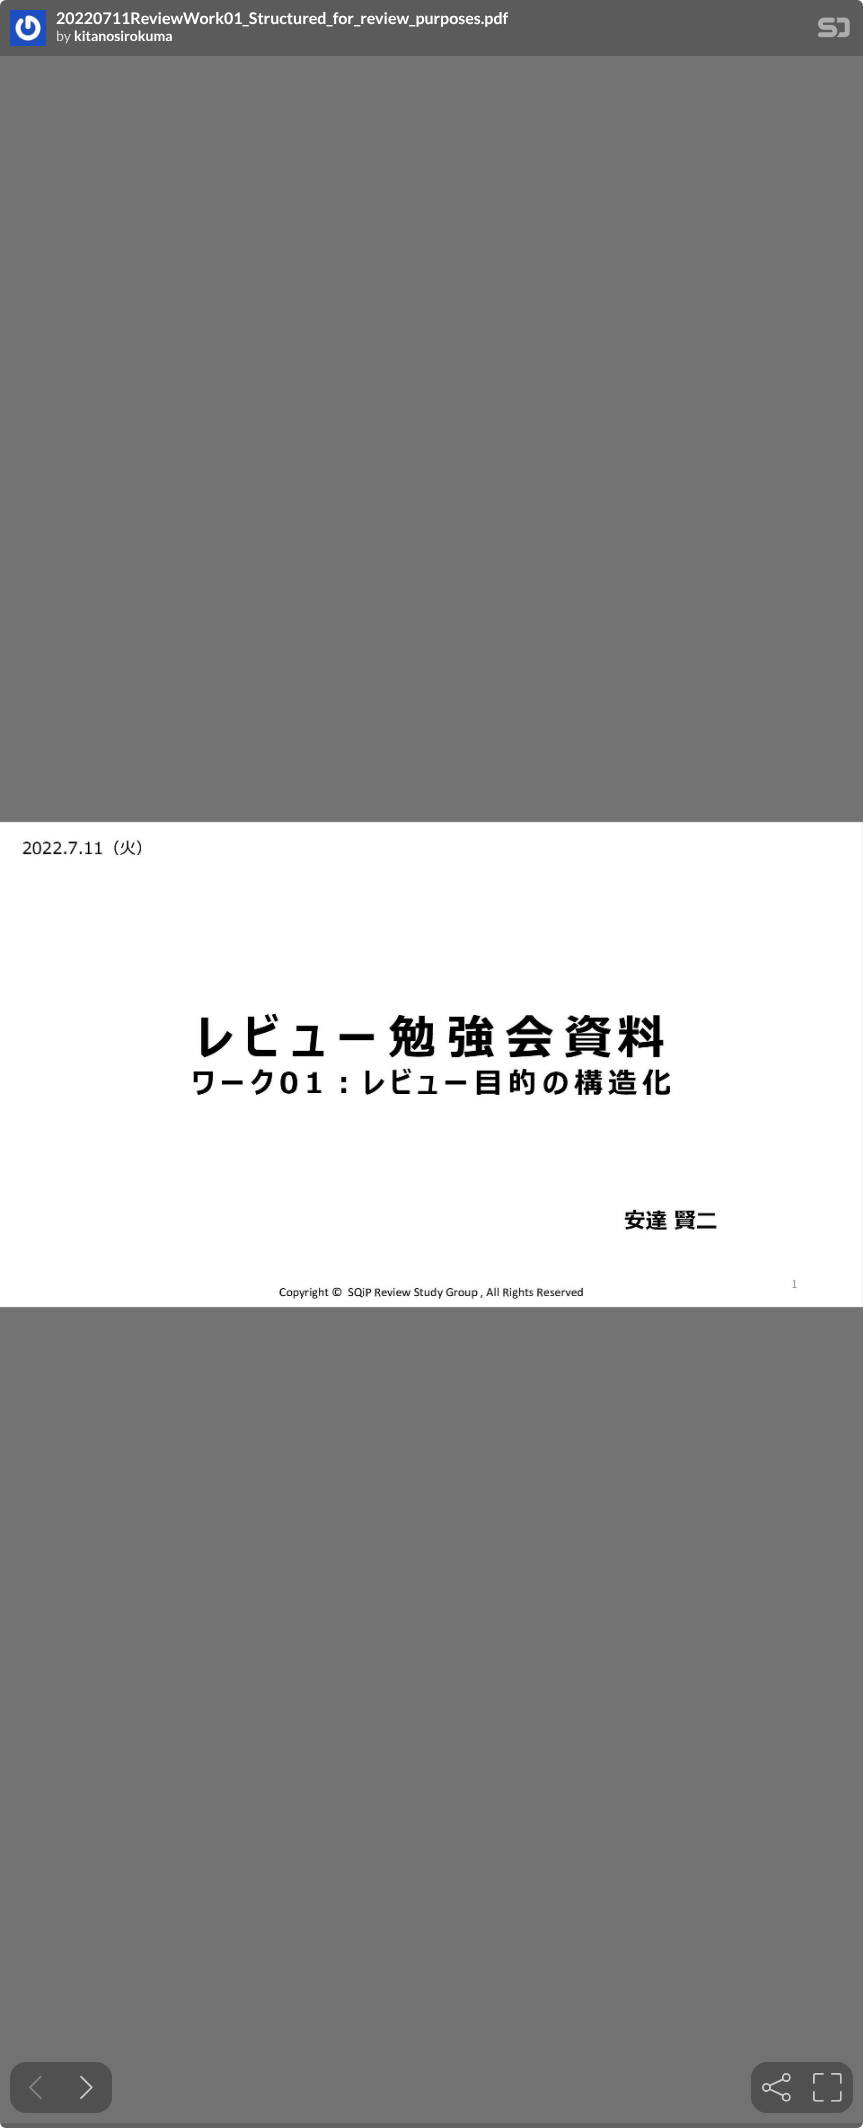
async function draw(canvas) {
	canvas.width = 863;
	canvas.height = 2128;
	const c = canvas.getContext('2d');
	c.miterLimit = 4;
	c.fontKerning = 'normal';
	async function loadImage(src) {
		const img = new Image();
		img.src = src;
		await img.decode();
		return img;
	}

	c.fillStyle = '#fff';
	c.fillRect(0, 0, 863, 2128);
	c.fillStyle = '#727272';
	c.beginPath();
	c.roundRect(0, 0, 863, 2128, 6);
	c.fill();
	c.drawImage(await loadImage('img1.png'), 0, 821, 863, 487);
	c.fillStyle = '#00000033';
	c.beginPath();
	c.roundRect(0, 0, 863, 56, [6, 6, 0, 0]);
	c.fill();
	c.drawImage(await loadImage('img2.png'), 10, 10, 36, 36);
	c.font = 'bold 16px Lato';
	c.fillStyle = '#fff';
	c.fillText('20220711ReviewWork01_Structured_for_review_purposes.pdf', 56, 24);
	c.drawImage(await loadImage('img3.png'), 818, 17, 32, 21);
	c.font = '14px Lato';
	c.fillStyle = '#dedede';
	c.fillText('by', 56, 41);
	c.font = 'bold 14px Lato';
	c.fillStyle = '#fff';
	c.fillText('kitanosirokuma', 74, 41);
	c.fillStyle = '#505050';
	c.beginPath();
	c.roundRect(10, 2062, 102, 51, 16);
	c.fill();
	c.drawImage(await loadImage('img4.png'), 29, 2075, 13, 25);
	c.drawImage(await loadImage('img5.png'), 80, 2075, 13, 25);
	c.beginPath();
	c.roundRect(751, 2062, 102, 51, 16);
	c.fill();
	c.drawImage(await loadImage('img6.png'), 762, 2073, 29, 29);
	c.drawImage(await loadImage('img7.png'), 813, 2073, 29, 29);
	c.save();
	c.beginPath();
	c.roundRect(0, 0, 863, 2128, 6);
	c.clip();
	c.fillStyle = '#00000026';
	c.fillRect(0, 2123, 863, 5);
	c.restore();
}

draw(document.querySelector('canvas'));
